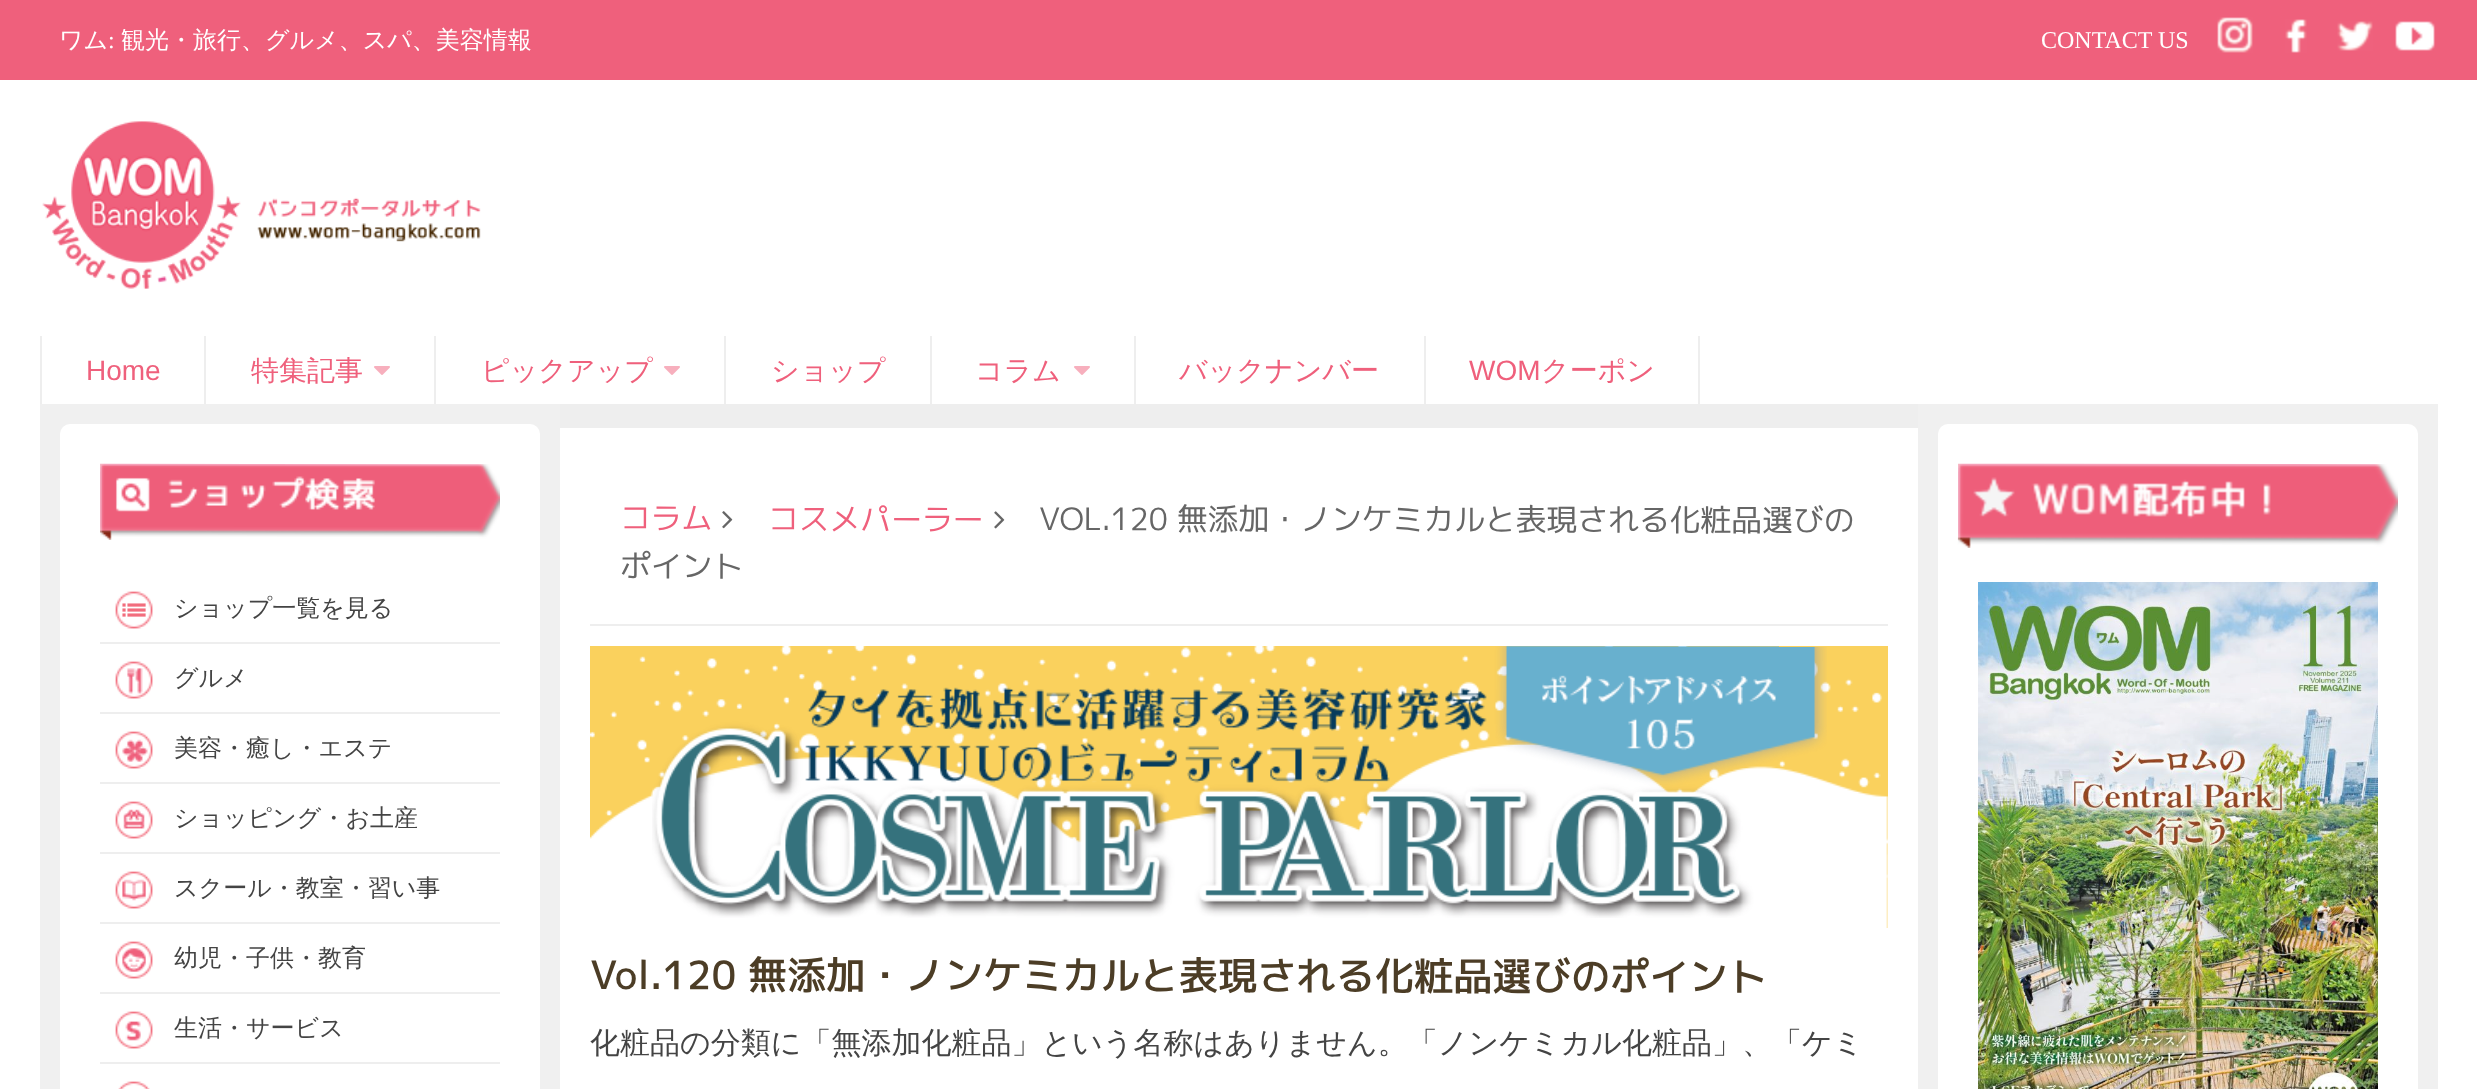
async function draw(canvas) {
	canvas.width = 2477;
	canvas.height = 1089;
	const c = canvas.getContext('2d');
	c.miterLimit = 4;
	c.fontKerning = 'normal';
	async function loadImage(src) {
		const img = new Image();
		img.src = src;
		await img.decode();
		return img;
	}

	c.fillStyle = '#fff';
	c.fillRect(0, 0, 2477, 1089);
	c.fillStyle = '#ef607c';
	c.fillRect(0, 0, 2477, 80);
	c.font = '500 24px WenQuanYi Zen Hei';
	c.fillStyle = '#fff';
	c.fillText('ワム', 59, 48);
	c.font = '24px Liberation Serif';
	c.fillText(':', 108, 48);
	c.font = '500 24px WenQuanYi Zen Hei';
	c.fillText('観光・旅行、グルメ、スパ、美容情報', 121, 48);
	c.font = '24px Liberation Serif';
	c.fillText('CONTACT US', 2041, 48);
	c.drawImage(await loadImage('img1.png'), 2217, 17, 36, 36);
	c.drawImage(await loadImage('img2.png'), 2285, 19, 22, 34);
	c.drawImage(await loadImage('img3.png'), 2337, 21, 36, 30);
	c.drawImage(await loadImage('img4.png'), 2395, 21, 40, 30);
	c.drawImage(await loadImage('img5.png'), 42, 121, 439, 168);
	c.fillStyle = '#eee';
	c.fillRect(204, 336, 2, 68);
	c.fillRect(40, 336, 2, 68);
	c.font = '28px Liberation Sans';
	c.fillStyle = '#ef607c';
	c.fillText('Home', 86, 380);
	c.fillStyle = '#eee';
	c.fillRect(434, 336, 2, 68);
	c.font = '500 28px WenQuanYi Zen Hei';
	c.fillStyle = '#ef607c';
	c.fillText('特集記事', 251, 380);
	c.drawImage(await loadImage('img6.png'), 374, 366, 16, 9);
	c.fillStyle = '#eee';
	c.fillRect(724, 336, 2, 68);
	c.fillStyle = '#ef607c';
	c.fillText('ピックアップ', 481, 380);
	c.drawImage(await loadImage('img6.png'), 664, 366, 16, 9);
	c.fillStyle = '#eee';
	c.fillRect(930, 336, 2, 68);
	c.fillStyle = '#ef607c';
	c.fillText('ショップ', 771, 380);
	c.fillStyle = '#eee';
	c.fillRect(1134, 336, 2, 68);
	c.fillStyle = '#ef607c';
	c.fillText('コラム', 975, 380);
	c.drawImage(await loadImage('img6.png'), 1074, 366, 16, 9);
	c.fillStyle = '#eee';
	c.fillRect(1424, 336, 2, 68);
	c.fillStyle = '#ef607c';
	c.fillText('バックナンバー', 1179, 380);
	c.fillStyle = '#eee';
	c.fillRect(1698, 336, 2, 68);
	c.font = '28px Liberation Sans';
	c.fillStyle = '#ef607c';
	c.fillText('WOM', 1469, 380);
	c.font = '500 28px WenQuanYi Zen Hei';
	c.fillText('クーポン', 1541, 380);
	c.fillStyle = '#f0f0f0';
	c.fillRect(1918, 404, 520, 685);
	c.fillRect(40, 404, 520, 685);
	c.fillStyle = '#fff';
	c.beginPath();
	c.roundRect(60, 424, 480, 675, 10);
	c.fill();
	c.drawImage(await loadImage('img7.png'), 100, 463, 400, 77);
	c.fillStyle = '#eee';
	c.fillRect(100, 642, 400, 2);
	c.drawImage(await loadImage('img8.png'), 115, 591, 38, 38);
	c.font = '500 24px WenQuanYi Zen Hei';
	c.fillStyle = '#444';
	c.fillText('ショップ一覧を見る', 174, 616);
	c.fillStyle = '#eee';
	c.fillRect(100, 712, 400, 2);
	c.drawImage(await loadImage('img9.png'), 115, 661, 38, 38);
	c.fillStyle = '#444';
	c.fillText('グルメ', 174, 686);
	c.fillStyle = '#eee';
	c.fillRect(100, 782, 400, 2);
	c.drawImage(await loadImage('img10.png'), 115, 731, 38, 38);
	c.fillStyle = '#444';
	c.fillText('美容・癒し・エステ', 174, 756);
	c.fillStyle = '#eee';
	c.fillRect(100, 852, 400, 2);
	c.drawImage(await loadImage('img11.png'), 115, 801, 38, 38);
	c.fillStyle = '#444';
	c.fillText('ショッピング・お土産', 174, 826);
	c.fillStyle = '#eee';
	c.fillRect(100, 922, 400, 2);
	c.drawImage(await loadImage('img12.png'), 115, 871, 38, 38);
	c.fillStyle = '#444';
	c.fillText('スクール・教室・習い事', 174, 896);
	c.fillStyle = '#eee';
	c.fillRect(100, 992, 400, 2);
	c.drawImage(await loadImage('img13.png'), 115, 941, 38, 38);
	c.fillStyle = '#444';
	c.fillText('幼児・子供・教育', 174, 966);
	c.fillStyle = '#eee';
	c.fillRect(100, 1062, 400, 2);
	c.drawImage(await loadImage('img14.png'), 115, 1011, 38, 38);
	c.fillStyle = '#444';
	c.fillText('生活・サービス', 174, 1036);
	c.drawImage(await loadImage('img15.png'), 118, 1081, 32, 8);
	c.fillStyle = '#eee';
	c.fillRect(560, 404, 1358, 24);
	c.fillRect(590, 624, 1298, 2);
	c.font = '30.8px "M PLUS 1p"';
	c.fillStyle = '#ef607c';
	c.save();
	c.translate(620, 529);
	c.rotate(0.1 * Math.PI / 180);
	c.fillText('コラム', 0, 0);
	c.restore();
	c.drawImage(await loadImage('img16.png'), 722, 511, 11, 18);
	c.save();
	c.translate(768, 530);
	c.rotate(0.1 * Math.PI / 180);
	c.fillText('コスメパーラー', 0, 0);
	c.restore();
	c.drawImage(await loadImage('img17.png'), 994, 511, 11, 18);
	c.fillStyle = '#666';
	c.save();
	c.translate(1039, 530);
	c.rotate(0.1 * Math.PI / 180);
	c.fillText('VOL.120', 0, 0);
	c.restore();
	c.save();
	c.translate(1177, 530);
	c.rotate(0.1 * Math.PI / 180);
	c.fillText('無添加・ノンケミカルと表現される化粧品選びの', 0, 0);
	c.restore();
	c.save();
	c.translate(620, 577);
	c.rotate(0.1 * Math.PI / 180);
	c.fillText('ポイント', 0, 0);
	c.restore();
	c.drawImage(await loadImage('img18.png'), 590, 646, 1298, 282);
	c.drawImage(await loadImage('img19.png'), 652, 646, 1175, 272);
	c.font = '500 39.2px "M PLUS 1p"';
	c.fillStyle = '#4c3d26';
	c.save();
	c.translate(590, 989);
	c.rotate(0.1 * Math.PI / 180);
	c.fillText('Vol.120', 0, 0);
	c.restore();
	c.save();
	c.translate(748, 989);
	c.rotate(0.1 * Math.PI / 180);
	c.fillText('無添加・ノンケミカルと表現される化粧品選びのポイント', 0, 0);
	c.restore();
	c.font = '500 30px WenQuanYi Zen Hei';
	c.fillStyle = '#444';
	c.fillText('化粧品の分類に「無添加化粧品」という名称はありません。「ノンケミカル化粧品」、「ケミ', 590, 1053);
	c.fillStyle = '#fff';
	c.beginPath();
	c.roundRect(1938, 424, 480, 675, 10);
	c.fill();
	c.drawImage(await loadImage('img20.png'), 1957, 463, 441, 85);
	c.drawImage(await loadImage('img21.png'), 1978, 582, 400, 507);
}

draw(document.querySelector('canvas'));
